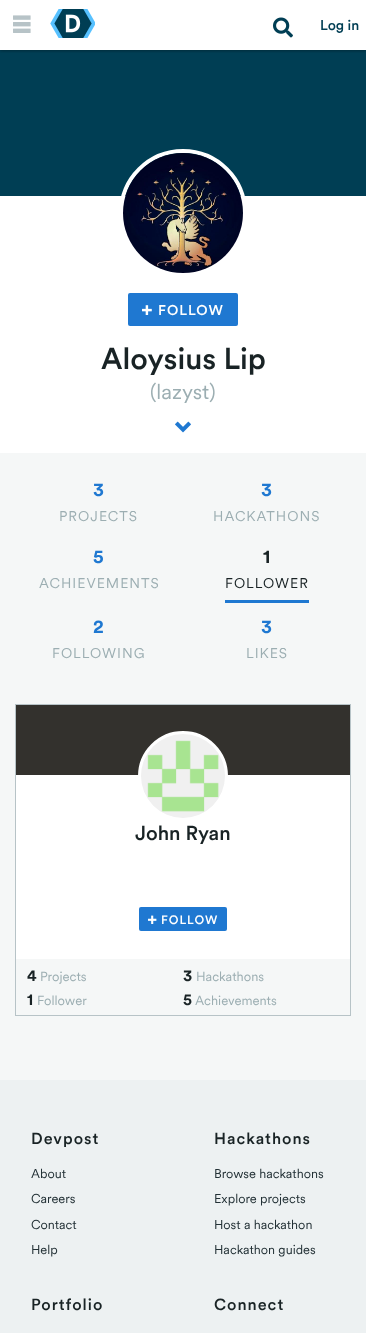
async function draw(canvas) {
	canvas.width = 366;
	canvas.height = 1333;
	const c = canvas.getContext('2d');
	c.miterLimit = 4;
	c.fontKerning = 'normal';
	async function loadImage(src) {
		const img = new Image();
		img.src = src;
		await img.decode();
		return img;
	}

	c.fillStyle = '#fff';
	c.fillRect(0, 0, 366, 1333);
	c.fillStyle = '#003e54';
	c.fillRect(0, 50, 366, 146);
	c.save();
	c.beginPath();
	c.rect(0, 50, 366, 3);
	c.clip();
	c.fillStyle = '#0000004d';
	c.filter = 'blur(1.5px)';
	c.beginPath();
	c.rect(0, 1, 366, 50);
	c.fill();
	c.filter = 'none';
	c.restore();
	c.drawImage(await loadImage('img1.png'), 13, 15, 18, 18);
	c.drawImage(await loadImage('img2.png'), 50, 9, 45, 29);
	c.drawImage(await loadImage('img3.png'), 273, 17, 20, 21);
	c.font = '500 14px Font';
	c.fillText('Log in', 320, 30);
	c.beginPath();
	c.arc(183, 213, 62, 0, 2 * Math.PI);
	c.strokeStyle = '#fff';
	c.lineWidth = 4;
	c.stroke();
	c.drawImage(await loadImage('img4.png'), 123, 153, 120, 120);
	c.fillStyle = '#1f78d1';
	c.beginPath();
	c.roundRect(128, 293, 110, 33, 2);
	c.fill();
	c.drawImage(await loadImage('img5.png'), 142, 305, 10, 10);
	c.letterSpacing = '1px';
	c.fillStyle = '#fff';
	c.fillText('FOLLOW', 158, 315);
	c.letterSpacing = '0px';
	c.font = '500 30px Font';
	c.fillStyle = '#192325';
	c.fillText('Aloysius Lip', 101, 369);
	c.font = '21px Font';
	c.fillStyle = '#9caeb2';
	c.fillText('(lazyst)', 150, 399);
	c.drawImage(await loadImage('img6.png'), 175, 421, 16, 12);
	c.fillStyle = '#f5f7f7';
	c.fillRect(0, 453, 366, 627);
	c.letterSpacing = '1px';
	c.font = 'bold 19px Font';
	c.fillStyle = '#1f78d1';
	c.fillText('3', 93, 496);
	c.font = '14px Font';
	c.fillStyle = '#9caeb2';
	c.fillText('PROJECTS', 59, 521);
	c.font = 'bold 19px Font';
	c.fillStyle = '#1f78d1';
	c.fillText('3', 261, 496);
	c.font = '14px Font';
	c.fillStyle = '#9caeb2';
	c.fillText('HACKATHONS', 213, 521);
	c.font = 'bold 19px Font';
	c.fillStyle = '#1f78d1';
	c.fillText('5', 93, 563);
	c.font = '14px Font';
	c.fillStyle = '#9caeb2';
	c.fillText('ACHIEVEMENTS', 39, 588);
	c.fillStyle = '#1f78d1';
	c.fillRect(225, 600, 84, 3);
	c.font = 'bold 19px Font';
	c.fillStyle = '#192325';
	c.fillText('1', 263, 563);
	c.font = '14px Font';
	c.fillText('FOLLOWER', 225, 588);
	c.font = 'bold 19px Font';
	c.fillStyle = '#1f78d1';
	c.fillText('2', 93, 633);
	c.font = '14px Font';
	c.fillStyle = '#9caeb2';
	c.fillText('FOLLOWING', 52, 658);
	c.font = 'bold 19px Font';
	c.fillStyle = '#1f78d1';
	c.fillText('3', 261, 633);
	c.font = '14px Font';
	c.fillStyle = '#9caeb2';
	c.fillText('LIKES', 246, 658);
	c.fillStyle = '#fff';
	c.fillRect(16, 775, 334, 184);
	c.strokeStyle = '#b7c3c7';
	c.lineWidth = 1;
	c.strokeRect(15.5, 704.5, 335, 311);
	c.fillStyle = '#33312d';
	c.fillRect(16, 705, 334, 70);
	c.fillStyle = '#fff';
	c.beginPath();
	c.arc(183, 776, 43.5, 0, 2 * Math.PI);
	c.fill();
	c.strokeStyle = '#fff';
	c.lineWidth = 3;
	c.stroke();
	c.drawImage(await loadImage('img7.png'), 141, 734, 84, 84);
	c.letterSpacing = '0px';
	c.font = '500 20px Font';
	c.fillStyle = '#192325';
	c.fillText('John Ryan', 135, 840);
	c.fillStyle = '#1f78d1';
	c.beginPath();
	c.roundRect(139, 907, 88, 24, 2);
	c.fill();
	c.drawImage(await loadImage('img8.png'), 148, 915, 9, 9);
	c.letterSpacing = '1px';
	c.font = '500 12px Font';
	c.fillStyle = '#fff';
	c.fillText('FOLLOW', 161, 924);
	c.letterSpacing = '0px';
	c.font = 'bold 16px Font';
	c.fillStyle = '#192325';
	c.fillText('4', 27, 981);
	c.font = '13px Font';
	c.fillStyle = '#9caeb2';
	c.fillText('Projects', 40, 981);
	c.font = 'bold 16px Font';
	c.fillStyle = '#192325';
	c.fillText('3', 183, 981);
	c.font = '13px Font';
	c.fillStyle = '#9caeb2';
	c.fillText('Hackathons', 196, 981);
	c.font = 'bold 16px Font';
	c.fillStyle = '#192325';
	c.fillText('1', 27, 1005);
	c.font = '13px Font';
	c.fillStyle = '#9caeb2';
	c.fillText('Follower', 37, 1005);
	c.font = 'bold 16px Font';
	c.fillStyle = '#192325';
	c.fillText('5', 183, 1005);
	c.font = '13px Font';
	c.fillStyle = '#9caeb2';
	c.fillText('Achievements', 195, 1005);
	c.fillStyle = '#edf1f2';
	c.fillRect(0, 1080, 366, 253);
	c.letterSpacing = '1px';
	c.font = '500 16px Font';
	c.fillStyle = '#192325';
	c.fillText('Devpost', 31, 1144);
	c.letterSpacing = '0px';
	c.font = '12.75px Font';
	c.fillStyle = '#233136';
	for (const [text, x, y] of [
		['About', 31, 1178],
		['Careers', 31, 1203],
		['Contact', 31, 1229],
		['Help', 31, 1254],
	]) {
		c.fillText(text, x, y);
	}
	c.letterSpacing = '1px';
	c.font = '500 16px Font';
	c.fillStyle = '#192325';
	c.fillText('Hackathons', 214, 1144);
	c.letterSpacing = '0px';
	c.font = '12.75px Font';
	c.fillStyle = '#233136';
	for (const [text, x, y] of [
		['Browse hackathons', 214, 1178],
		['Explore projects', 214, 1203],
		['Host a hackathon', 214, 1229],
		['Hackathon guides', 214, 1254],
	]) {
		c.fillText(text, x, y);
	}
	c.letterSpacing = '1px';
	c.font = '500 16px Font';
	c.fillStyle = '#192325';
	c.fillText('Portfolio', 31, 1310);
	c.fillText('Connect', 214, 1310);
}

draw(document.querySelector('canvas'));
